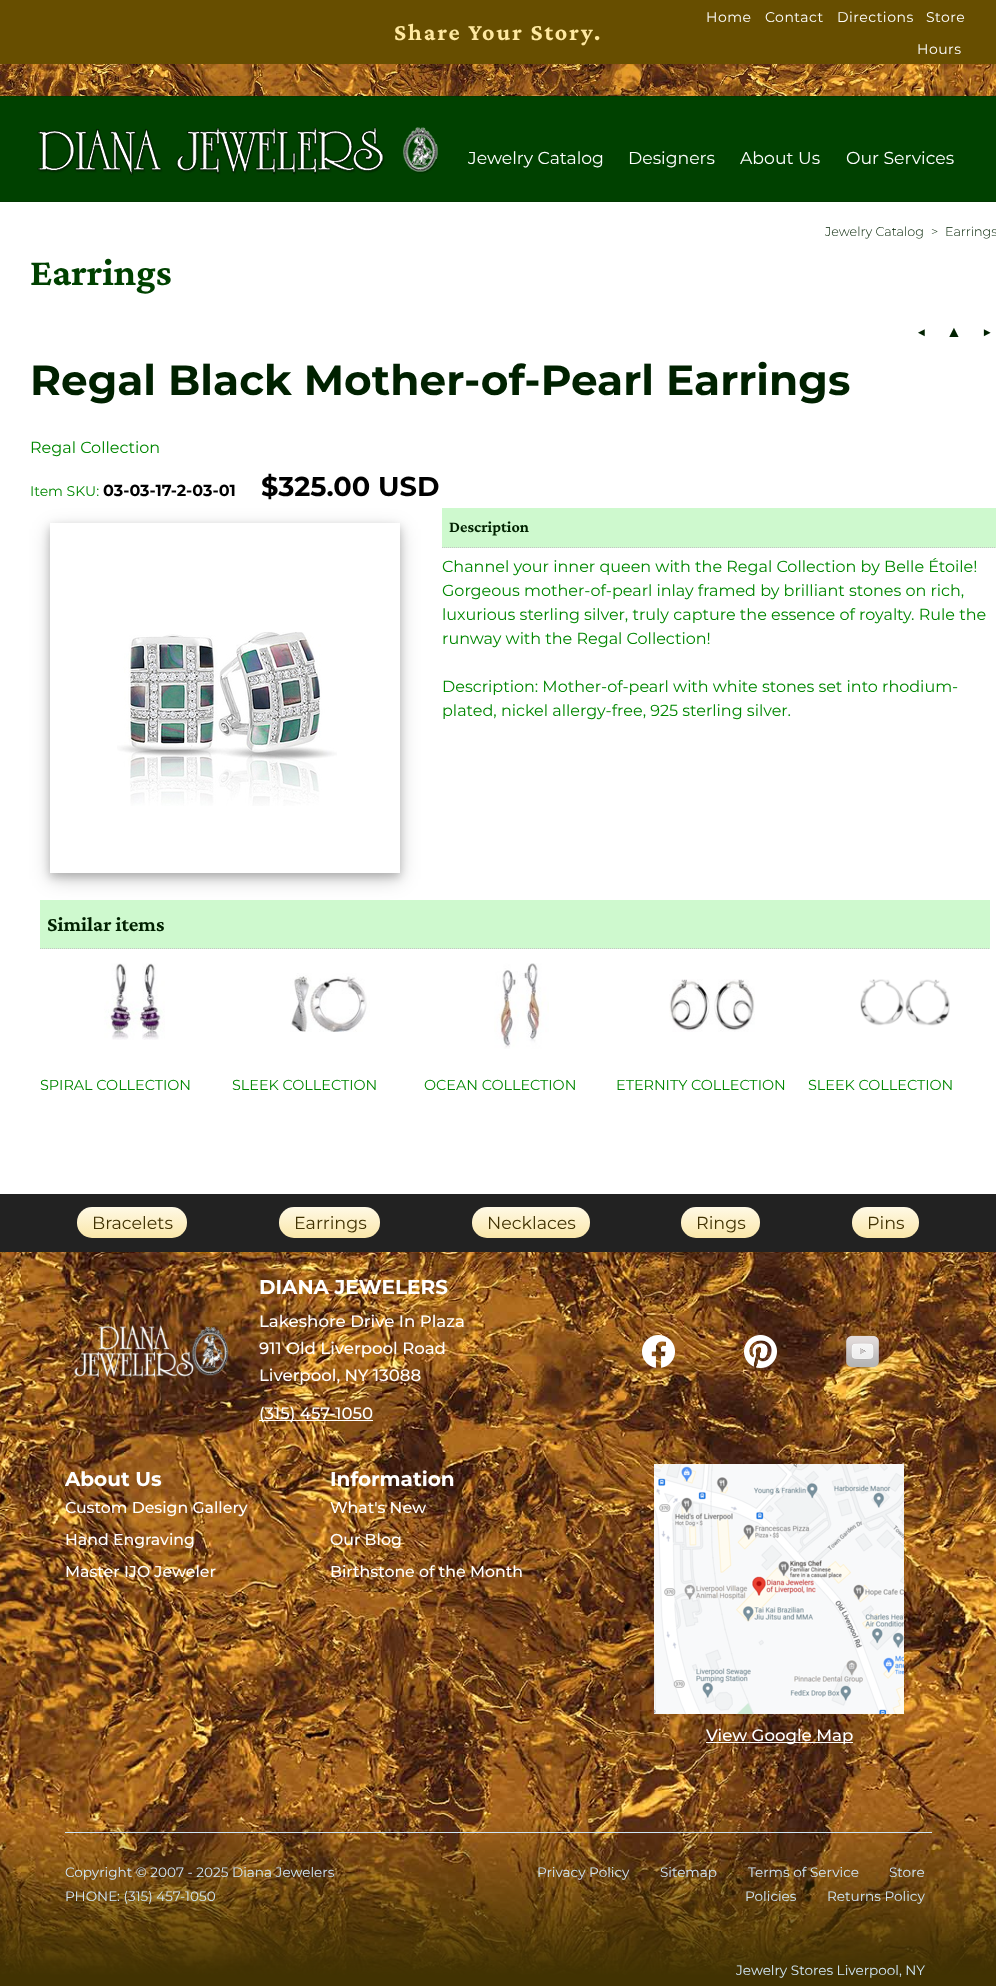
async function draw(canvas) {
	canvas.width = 996;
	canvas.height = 1986;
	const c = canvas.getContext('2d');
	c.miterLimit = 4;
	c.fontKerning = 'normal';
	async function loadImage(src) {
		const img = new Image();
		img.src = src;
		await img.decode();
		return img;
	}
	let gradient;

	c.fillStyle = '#fff';
	c.fillRect(0, 0, 996, 1986);
	for (const [x, y, w, h, color] of [
		[0, 97, 996, 104, '#004100'],
		[0, 201, 996, 1, '#023802'],
		[0, 96, 996, 1, '#023802'],
		[0, 0, 996, 64, '#674e00'],
	]) {
		c.fillStyle = color;
		c.fillRect(x, y, w, h);
	}
	c.letterSpacing = '2px';
	c.font = 'bold 24px Crimson Pro';
	c.fillStyle = '#ffe9a0';
	c.fillText('Share Your Story.', 394, 40);
	c.letterSpacing = '0.5px';
	c.font = '14px Montserrat';
	c.fillStyle = '#fff';
	for (const [text, x, y] of [
		['Home', 706, 22],
		['Contact', 765, 22],
		['Directions', 837, 22],
		['Store', 926, 22],
		['Hours', 917, 54],
	]) {
		c.fillText(text, x, y);
	}
	c.drawImage(await loadImage('img1.png'), 0, 64, 996, 32);
	c.drawImage(await loadImage('img2.png'), 37, 127, 401, 49);
	c.letterSpacing = '0px';
	c.font = '17.25px Montserrat';
	for (const [text, x, y] of [
		['Jewelry Catalog', 468, 164],
		['Designers', 628, 164],
		['About Us', 740, 164],
		['Our Services', 846, 164],
	]) {
		c.fillText(text, x, y);
	}
	c.font = '300 12.75px Montserrat';
	c.fillStyle = '#002100';
	for (const [text, x, y] of [
		['Jewelry Catalog', 825, 236],
		['>', 931, 236],
		['Earrings', 945, 236],
	]) {
		c.fillText(text, x, y);
	}
	c.font = 'bold 39px Crimson Pro';
	c.fillStyle = '#004100';
	c.fillText('Earrings', 30, 285);
	c.font = 'bold 16px Montserrat';
	c.fillStyle = '#002100';
	c.fillText('◀', 917, 337);
	c.font = 'bold 16px Liberation Sans';
	c.fillText('▲', 946, 337);
	c.font = 'bold 16px Montserrat';
	c.fillText('▶', 982, 337);
	c.font = 'bold 42.25px "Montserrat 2"';
	c.fillText('Regal Black Mother-of-Pearl Earrings', 30, 395);
	c.font = '16px Montserrat';
	c.fillStyle = '#008700';
	c.fillText('Regal Collection', 30, 453);
	c.font = '14px Montserrat';
	c.fillText('Item SKU:', 30, 496);
	c.font = 'bold 16px "Montserrat 2"';
	c.fillStyle = '#000';
	c.fillText('03-03-17-2-03-01', 103, 496);
	c.fillStyle = '#cef9ce';
	c.fillRect(40, 900, 950, 49);
	c.save();
	c.beginPath();
	c.moveTo(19, 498);
	c.lineTo(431, 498);
	c.lineTo(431, 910);
	c.lineTo(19, 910);
	c.closePath();
	c.moveTo(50, 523);
	c.lineTo(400, 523);
	c.lineTo(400, 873);
	c.lineTo(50, 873);
	c.closePath();
	c.clip('evenodd');
	c.fillStyle = '#00000030';
	c.filter = 'blur(10px)';
	c.beginPath();
	c.rect(50, 529, 350, 350);
	c.fill();
	c.filter = 'none';
	c.restore();
	c.font = 'bold 27.25px "Montserrat 2"';
	c.fillStyle = '#000';
	c.fillText('$325.00 USD', 261, 496);
	c.save();
	c.beginPath();
	c.moveTo(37, 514);
	c.lineTo(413, 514);
	c.lineTo(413, 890);
	c.lineTo(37, 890);
	c.closePath();
	c.moveTo(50, 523);
	c.lineTo(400, 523);
	c.lineTo(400, 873);
	c.lineTo(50, 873);
	c.closePath();
	c.clip('evenodd');
	c.fillStyle = '#00000033';
	c.filter = 'blur(4px)';
	c.beginPath();
	c.rect(50, 527, 350, 350);
	c.fill();
	c.filter = 'none';
	c.restore();
	c.drawImage(await loadImage('img3.png'), 117, 632, 220, 174);
	c.fillStyle = '#cef9ce';
	c.fillRect(442, 508, 554, 40);
	c.beginPath();
	c.moveTo(442, 547.5);
	c.lineTo(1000, 547.5);
	c.strokeStyle = '#c5c5c5';
	c.setLineDash([1, 1]);
	c.stroke();
	c.font = 'bold 16px Crimson Pro';
	c.fillStyle = '#002100';
	c.fillText('Description', 449, 532);
	c.font = '16px Montserrat';
	c.fillStyle = '#008700';
	for (const [text, x, y] of [
		['Channel your inner queen with the Regal Collection by Belle Étoile!', 442, 572],
		['Gorgeous mother-of-pearl inlay framed by brilliant stones on rich,', 442, 596],
		['luxurious sterling silver, truly capture the essence of royalty. Rule the', 442, 620],
		['runway with the Regal Collection!', 442, 644],
		['Description: Mother-of-pearl with white stones set into rhodium-', 442, 692],
		['plated, nickel allergy-free, 925 sterling silver.', 442, 716],
	]) {
		c.fillText(text, x, y);
	}
	c.beginPath();
	c.moveTo(40, 948.5);
	c.lineTo(990, 948.5);
	c.stroke();
	c.font = 'bold 20.75px Crimson Pro';
	c.fillStyle = '#002100';
	c.fillText('Similar items', 47, 931);
	c.drawImage(await loadImage('img4.png'), 104, 963, 61, 77);
	c.font = '14.4px Montserrat';
	c.fillStyle = '#008700';
	c.fillText('SPIRAL COLLECTION', 40, 1090);
	c.drawImage(await loadImage('img5.png'), 290, 973, 80, 59);
	c.fillText('SLEEK COLLECTION', 232, 1090);
	c.drawImage(await loadImage('img6.png'), 494, 963, 55, 86);
	c.fillText('OCEAN COLLECTION', 424, 1090);
	c.drawImage(await loadImage('img7.png'), 669, 979, 86, 53);
	c.fillText('ETERNITY COLLECTION', 616, 1090);
	c.drawImage(await loadImage('img8.png'), 860, 979, 90, 47);
	c.fillText('SLEEK COLLECTION', 808, 1090);
	c.drawImage(await loadImage('img9.png'), 0, 1252, 996, 734);
	c.fillStyle = '#222';
	c.fillRect(0, 1194, 996, 58);
	gradient = c.createLinearGradient(132, 1207, 132, 1238);
	gradient.addColorStop(0, '#fff9e6');
	gradient.addColorStop(1, '#fae7a9');
	c.fillStyle = gradient;
	c.beginPath();
	c.roundRect(77, 1207, 110, 31, 15);
	c.fill();
	c.font = '17.5px Montserrat';
	c.fillStyle = '#413202';
	c.fillText('Bracelets', 92, 1229);
	gradient = c.createLinearGradient(330, 1207, 330, 1238);
	gradient.addColorStop(0, '#fff9e6');
	gradient.addColorStop(1, '#fae7a9');
	c.fillStyle = gradient;
	c.beginPath();
	c.roundRect(279, 1207, 101, 31, 15);
	c.fill();
	c.fillStyle = '#413202';
	c.fillText('Earrings', 294, 1229);
	gradient = c.createLinearGradient(531, 1207, 531, 1238);
	gradient.addColorStop(0, '#fff9e6');
	gradient.addColorStop(1, '#fae7a9');
	c.fillStyle = gradient;
	c.beginPath();
	c.roundRect(472, 1207, 118, 31, 15);
	c.fill();
	c.fillStyle = '#413202';
	c.fillText('Necklaces', 487, 1229);
	gradient = c.createLinearGradient(721, 1207, 721, 1238);
	gradient.addColorStop(0, '#fff9e6');
	gradient.addColorStop(1, '#fae7a9');
	c.fillStyle = gradient;
	c.beginPath();
	c.roundRect(681, 1207, 79, 31, 15);
	c.fill();
	c.fillStyle = '#413202';
	c.fillText('Rings', 696, 1229);
	gradient = c.createLinearGradient(886, 1207, 886, 1238);
	gradient.addColorStop(0, '#fff9e6');
	gradient.addColorStop(1, '#fae7a9');
	c.fillStyle = gradient;
	c.beginPath();
	c.roundRect(852, 1207, 67, 31, 15);
	c.fill();
	c.fillStyle = '#413202';
	c.fillText('Pins', 867, 1229);
	c.drawImage(await loadImage('img10.png'), 74, 1325, 155, 53);
	c.font = 'bold 20px "Montserrat 2"';
	c.fillStyle = '#fff';
	c.fillText('DIANA JEWELERS', 259, 1294);
	c.font = '500 16.6px Montserrat';
	for (const [text, x, y] of [
		['Lakeshore Drive In Plaza', 259, 1327],
		['911 Old Liverpool Road', 259, 1354],
		['Liverpool, NY 13088', 259, 1381],
	]) {
		c.fillText(text, x, y);
	}
	c.fillRect(259, 1420, 114, 1);
	c.fillText('(315) 457-1050', 259, 1419);
	c.drawImage(await loadImage('img11.png'), 642, 1335, 33, 33);
	c.drawImage(await loadImage('img12.png'), 744, 1335, 33, 33);
	c.drawImage(await loadImage('img13.png'), 846, 1335, 33, 33);
	c.font = 'bold 20px "Montserrat 2"';
	c.fillText('About Us', 65, 1486);
	c.font = '500 15.75px Montserrat';
	for (const [text, x, y] of [
		['Custom Design Gallery', 65, 1513],
		['Hand Engraving', 65, 1545],
		['Master IJO Jeweler', 65, 1577],
	]) {
		c.fillText(text, x, y);
	}
	c.font = 'bold 20px "Montserrat 2"';
	c.fillText('Information', 330, 1486);
	c.font = '500 15.75px Montserrat';
	for (const [text, x, y] of [
		['What\'s New', 330, 1513],
		['Our Blog', 330, 1545],
		['Birthstone of the Month', 330, 1577],
	]) {
		c.fillText(text, x, y);
	}
	c.drawImage(await loadImage('img14.png'), 654, 1464, 250, 250);
	c.fillRect(706, 1742, 147, 1);
	c.font = '500 16.6px Montserrat';
	c.fillText('View Google Map', 706, 1741);
	c.fillStyle = '#d0e7f8';
	c.fillRect(65, 1832, 867, 1);
	c.font = '13.6px Montserrat';
	for (const [text, x, y] of [
		['Copyright © 2007 - 2025 Diana Jewelers', 65, 1877],
		['PHONE: (315) 457-1050', 65, 1901],
		['Privacy Policy', 537, 1877],
		['Sitemap', 660, 1877],
		['Terms of Service', 748, 1877],
		['Store', 889, 1877],
		['Policies', 745, 1901],
		['Returns Policy', 827, 1901],
		['Jewelry Stores Liverpool, NY', 736, 1975],
	]) {
		c.fillText(text, x, y);
	}
}

draw(document.querySelector('canvas'));
